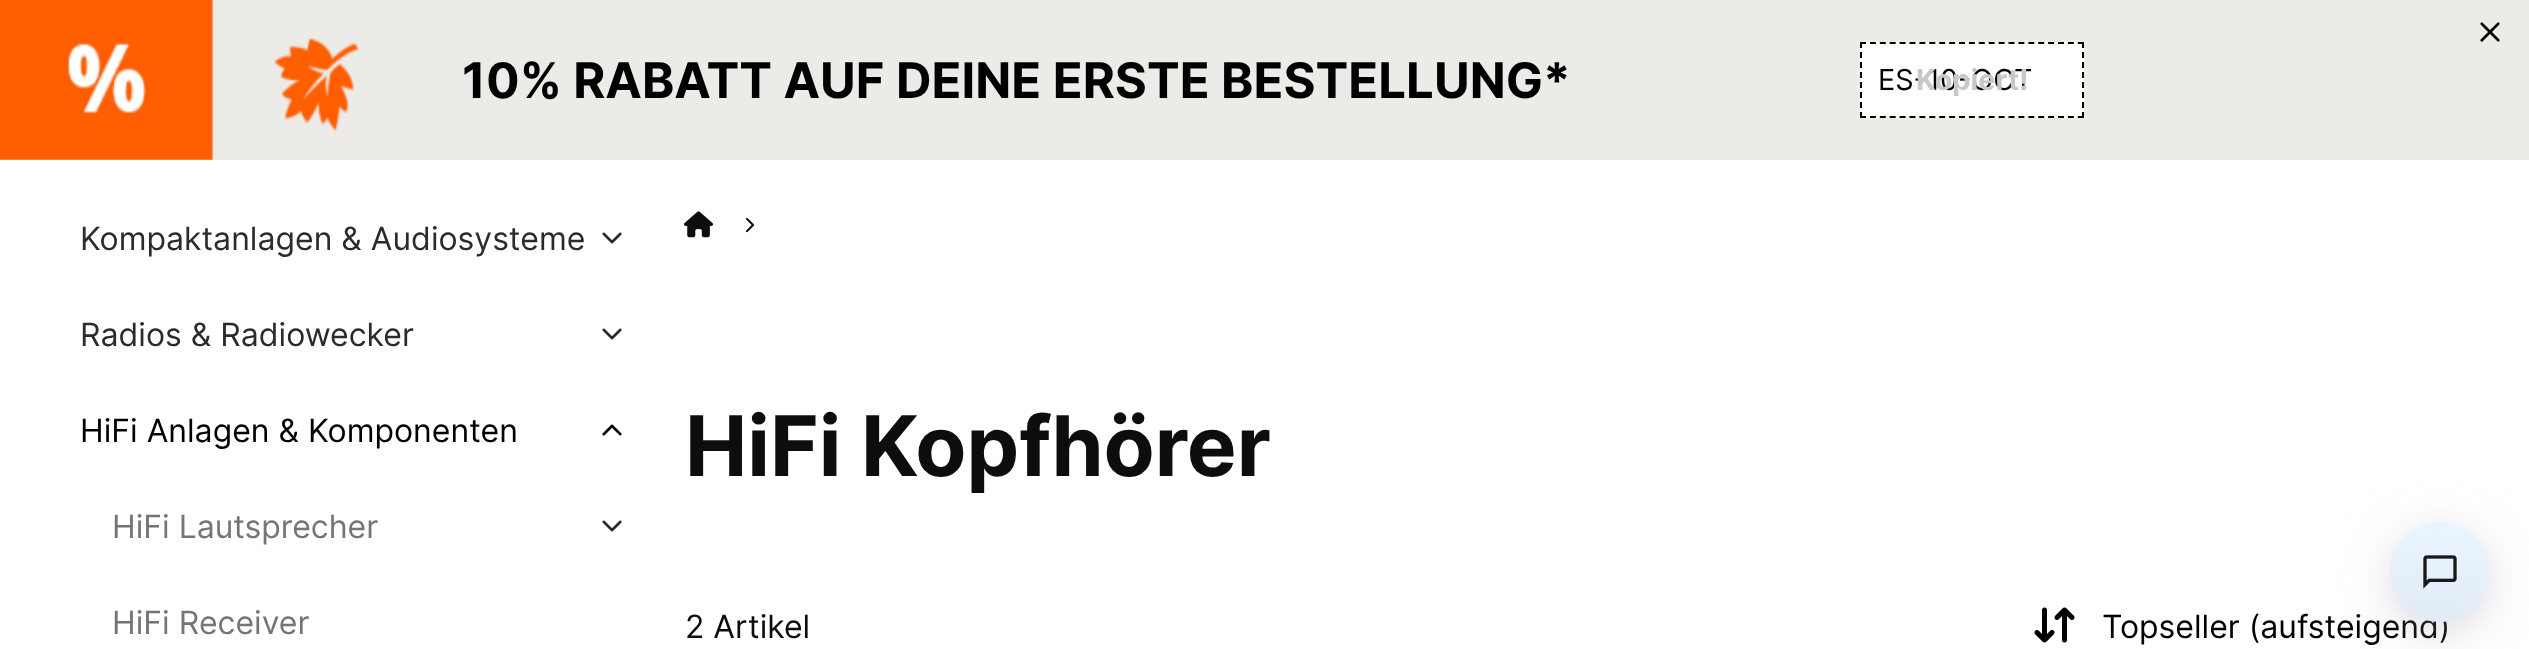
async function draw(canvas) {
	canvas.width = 2529;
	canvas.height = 649;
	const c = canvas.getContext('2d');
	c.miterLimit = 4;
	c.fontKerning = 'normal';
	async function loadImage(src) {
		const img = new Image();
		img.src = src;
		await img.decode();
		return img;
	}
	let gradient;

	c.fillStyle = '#fff';
	c.fillRect(0, 0, 2529, 649);
	c.fillStyle = '#ecebe7';
	c.fillRect(0, 0, 2529, 160);
	c.drawImage(await loadImage('img1.png'), 2480, 22, 20, 20);
	c.drawImage(await loadImage('img2.png'), 0, 0, 359, 160);
	c.font = 'bold 49px Inter';
	c.fillStyle = '#000';
	c.fillText('10% RABATT AUF DEINE ERSTE BESTELLUNG*', 462, 98);
	c.fillStyle = '#fff';
	c.fillRect(1860, 42, 224, 76);
	c.beginPath();
	c.moveTo(1860, 43);
	c.lineTo(2084, 43);
	c.strokeStyle = '#000';
	c.lineWidth = 2;
	c.setLineDash([6, 3.9]);
	c.stroke();
	c.beginPath();
	c.moveTo(2083, 42);
	c.lineTo(2083, 118);
	c.setLineDash([6, 4]);
	c.stroke();
	c.beginPath();
	c.moveTo(1860, 117);
	c.lineTo(2084, 117);
	c.setLineDash([6, 3.9]);
	c.stroke();
	c.beginPath();
	c.moveTo(1861, 42);
	c.lineTo(1861, 118);
	c.setLineDash([6, 4]);
	c.stroke();
	c.font = '28.75px Inter';
	c.fillStyle = '#000';
	c.fillText('ES-10-OCT', 1878, 90);
	c.font = 'bold 28.75px Inter';
	c.fillStyle = '#c8c8c8';
	c.fillText('Kopiert!', 1916, 90);
	c.font = '32px Inter';
	c.fillStyle = '#2c2b2b';
	c.fillText('Kompaktanlagen & Audiosysteme', 80, 250);
	c.drawImage(await loadImage('img3.png'), 602, 232, 20, 12);
	c.fillText('Radios & Radiowecker', 80, 346);
	c.drawImage(await loadImage('img3.png'), 602, 328, 20, 12);
	c.fillStyle = '#000';
	c.fillText('HiFi Anlagen & Komponenten', 80, 442);
	c.drawImage(await loadImage('img4.png'), 602, 424, 20, 12);
	c.fillStyle = '#757575';
	c.fillText('HiFi Lautsprecher', 112, 538);
	c.drawImage(await loadImage('img3.png'), 602, 520, 20, 12);
	c.fillText('HiFi Receiver', 112, 634);
	c.drawImage(await loadImage('img5.png'), 684, 211, 30, 27);
	c.drawImage(await loadImage('img6.png'), 745, 217, 10, 16);
	c.font = 'bold 83.5px Inter';
	c.fillStyle = '#0d0d0d';
	c.fillText('HiFi Kopfhörer', 685, 476);
	c.font = '32px Inter';
	c.fillText('2 Artikel', 685, 638);
	c.drawImage(await loadImage('img7.png'), 2034, 607, 41, 36);
	c.fillStyle = '#000';
	c.fillText('Topseller (aufsteigend)', 2102, 638);
	c.fillStyle = '#cbc3d433';
	c.filter = 'blur(32px)';
	c.beginPath();
	c.roundRect(2390, 532, 100, 100, 50);
	c.fill();
	c.filter = 'none';
	c.fillStyle = '#977c9c33';
	c.filter = 'blur(18px)';
	c.beginPath();
	c.roundRect(2390, 532, 100, 100, 50);
	c.fill();
	c.filter = 'none';
	gradient = c.createLinearGradient(2445, 518, 2435, 626);
	gradient.addColorStop(0, '#eaf5ff');
	gradient.addColorStop(1, '#e0ebf5');
	c.fillStyle = gradient;
	c.beginPath();
	c.arc(2440, 572, 50, 0, 2 * Math.PI);
	c.fill();
	c.drawImage(await loadImage('img8.png'), 2423, 555, 34, 34);
}

draw(document.querySelector('canvas'));
